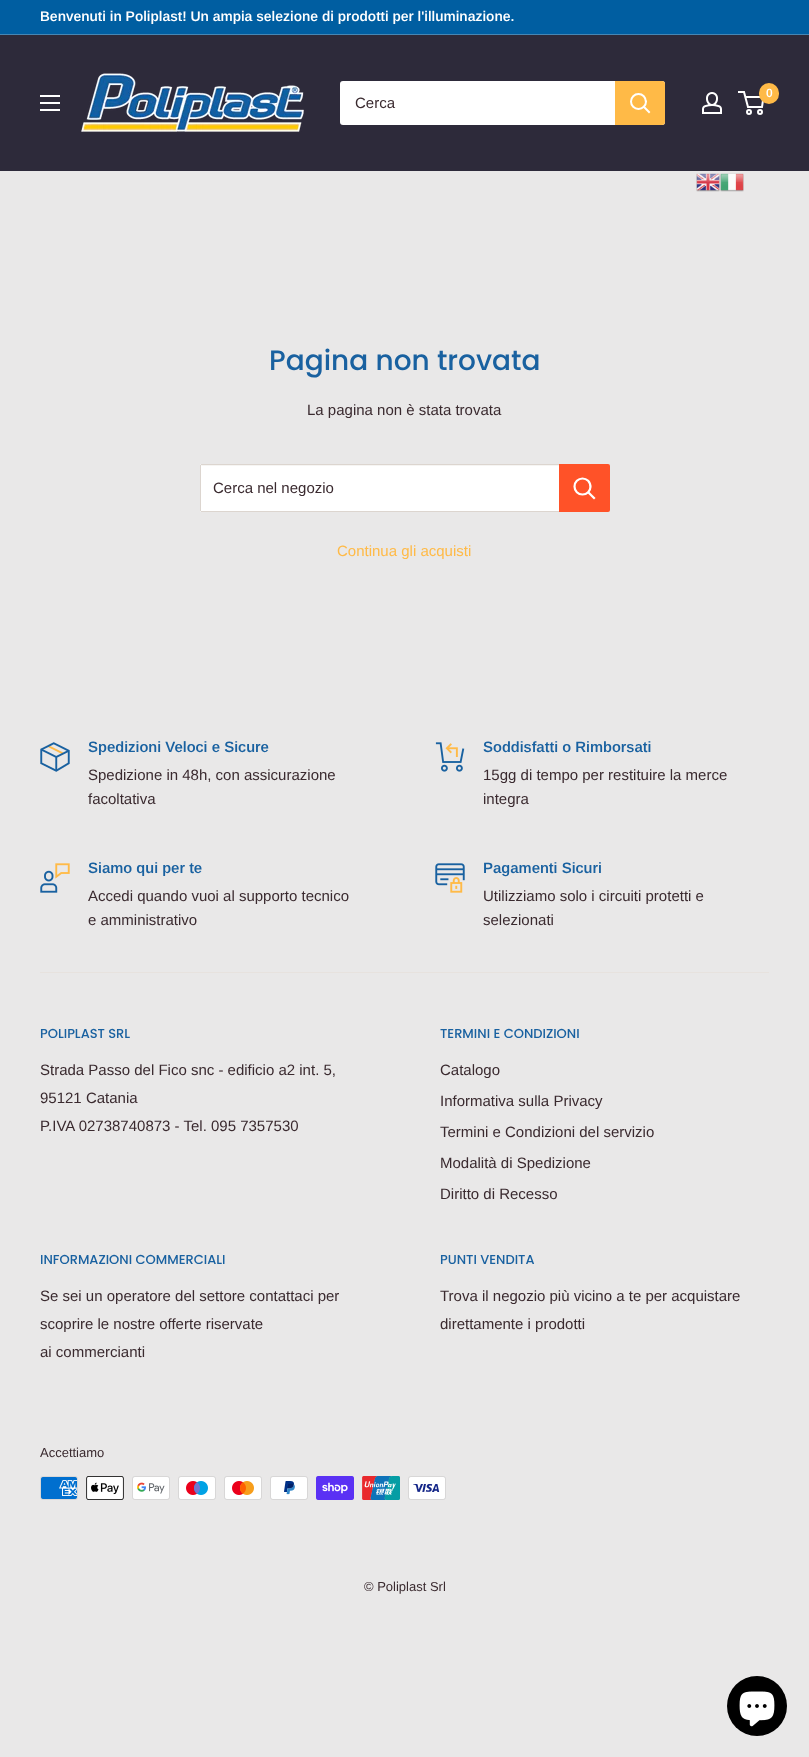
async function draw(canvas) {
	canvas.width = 809;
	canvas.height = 1757;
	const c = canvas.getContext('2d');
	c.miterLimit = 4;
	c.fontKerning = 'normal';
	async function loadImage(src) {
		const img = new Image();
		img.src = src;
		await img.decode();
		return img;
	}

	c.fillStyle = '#e9e8e8';
	c.fillRect(0, 0, 809, 1757);
	c.fillStyle = '#005ea1';
	c.fillRect(0, 0, 809, 34);
	c.fillStyle = '#4686b3';
	c.fillRect(0, 34, 809, 1);
	c.font = '600 14px Arimo';
	c.fillStyle = '#fff';
	c.fillText('Benvenuti in Poliplast! Un ampia selezione di prodotti per l\'illuminazione.', 40, 21);
	c.fillStyle = '#2d2a3a';
	c.fillRect(0, 35, 809, 136);
	c.drawImage(await loadImage('img1.png'), 81, 73, 223, 59);
	c.drawImage(await loadImage('img2.png'), 702, 92, 20, 22);
	c.beginPath();
	c.arc(749, 112, 2, 0, 2 * Math.PI);
	c.strokeStyle = '#fff';
	c.lineWidth = 2;
	c.stroke();
	c.beginPath();
	c.arc(760, 112, 2, 0, 2 * Math.PI);
	c.stroke();
	c.beginPath();
	c.moveTo(745.5, 97);
	c.lineTo(763.5, 97);
	c.lineTo(762, 107);
	c.lineTo(748, 107);
	c.lineTo(744, 92);
	c.lineTo(738, 92);
	c.stroke();
	c.fillStyle = '#ffba47';
	c.beginPath();
	c.roundRect(759, 83, 20, 21, 10);
	c.fill();
	c.font = '600 12px Arimo';
	c.fillStyle = '#fff';
	c.fillText('0', 766, 97);
	c.drawImage(await loadImage('img3.png'), 40, 95, 20, 16);
	c.beginPath();
	c.roundRect(340, 81, 325, 44, 3);
	c.fill();
	c.font = '15px Arimo';
	c.fillStyle = '#3a2a2f';
	c.fillText('Cerca', 355, 108);
	c.fillStyle = '#ffba47';
	c.beginPath();
	c.roundRect(615, 81, 50, 44, [0, 3, 3, 0]);
	c.fill();
	c.beginPath();
	c.moveTo(649, 112);
	c.lineTo(644, 107);
	c.lineCap = 'square';
	c.stroke();
	c.beginPath();
	c.arc(638.5, 101.5, 7.5, 0, 2 * Math.PI);
	c.stroke();
	c.drawImage(await loadImage('img4.png'), 696, 173, 24, 19);
	c.drawImage(await loadImage('img5.png'), 720, 173, 24, 19);
	c.font = '500 28px Poppins';
	c.fillStyle = '#1961a0';
	c.fillText('Pagina non trovata', 269, 370);
	c.font = '15px Arimo';
	c.fillStyle = '#3a2a2f';
	c.fillText('La pagina non è stata trovata', 307, 415);
	c.fillStyle = '#fff';
	c.beginPath();
	c.roundRect(200, 464, 359, 48, [2, 0, 0, 2]);
	c.fill();
	c.fillStyle = '#f6f5f3';
	c.beginPath();
	c.moveTo(202, 466);
	c.lineTo(559, 466);
	c.lineTo(559, 465);
	c.lineTo(202, 465);
	c.bezierCurveTo(201, 465, 201, 466, 201, 467);
	c.bezierCurveTo(201, 466, 201, 466, 202, 466);
	c.closePath();
	c.fill();
	for (const [x, y, w, h, color] of [
		[201, 464, 358, 1, '#dcd5cf'],
		[201, 511, 358, 1, '#dcd5cf'],
		[200, 465, 1, 46, '#dcd5cf'],
	]) {
		c.fillStyle = color;
		c.fillRect(x, y, w, h);
	}
	c.fillStyle = '#3a2a2f';
	c.fillText('Cerca nel negozio', 213, 493);
	c.fillStyle = '#ff5228';
	c.beginPath();
	c.roundRect(559, 464, 51, 48, [0, 2, 2, 0]);
	c.fill();
	c.beginPath();
	c.moveTo(594, 498);
	c.lineTo(588.5, 492.5);
	c.lineWidth = 2.2;
	c.stroke();
	c.beginPath();
	c.arc(582.5, 486.5, 8, 0, 2 * Math.PI);
	c.stroke();
	c.fillStyle = '#ffba47';
	c.fillText('Continua gli acquisti', 337, 556);
	c.drawImage(await loadImage('img6.png'), 40, 742, 30, 30);
	c.font = '600 15px Arimo';
	c.fillStyle = '#1961a0';
	c.fillText('Spedizioni Veloci e Sicure', 88, 752);
	c.font = '15px Arimo';
	c.fillStyle = '#3a2a2f';
	c.fillText('Spedizione in 48h, con assicurazione', 88, 780);
	c.fillText('facoltativa', 88, 804);
	c.drawImage(await loadImage('img7.png'), 435, 742, 30, 30);
	c.font = '600 15px Arimo';
	c.fillStyle = '#1961a0';
	c.fillText('Soddisfatti o Rimborsati', 483, 752);
	c.font = '15px Arimo';
	c.fillStyle = '#3a2a2f';
	c.fillText('15gg di tempo per restituire la merce', 483, 780);
	c.fillText('integra', 483, 804);
	c.drawImage(await loadImage('img8.png'), 40, 863, 30, 30);
	c.font = '600 15px Arimo';
	c.fillStyle = '#1961a0';
	c.fillText('Siamo qui per te', 88, 873);
	c.font = '15px Arimo';
	c.fillStyle = '#3a2a2f';
	c.fillText('Accedi quando vuoi al supporto tecnico', 88, 901);
	c.fillText('e amministrativo', 88, 925);
	c.drawImage(await loadImage('img9.png'), 435, 863, 30, 30);
	c.font = '600 15px Arimo';
	c.fillStyle = '#1961a0';
	c.fillText('Pagamenti Sicuri', 483, 873);
	c.font = '15px Arimo';
	c.fillStyle = '#3a2a2f';
	c.fillText('Utilizziamo solo i circuiti protetti e', 483, 901);
	c.fillText('selezionati', 483, 925);
	c.fillStyle = '#e7e2de';
	c.fillRect(40, 972, 729, 1);
	c.font = '500 13px Poppins';
	c.fillStyle = '#1961a0';
	c.fillText('POLIPLAST SRL', 40, 1038);
	c.font = '15px Arimo';
	c.fillStyle = '#3a2a2f';
	for (const [text, x, y] of [
		['Strada Passo del Fico snc - edificio a2 int. 5,', 40, 1075],
		['95121 Catania', 40, 1103],
		['P.IVA 02738740873 - Tel. 095 7357530', 40, 1131],
	]) {
		c.fillText(text, x, y);
	}
	c.font = '500 13px Poppins';
	c.fillStyle = '#1961a0';
	c.fillText('TERMINI E CONDIZIONI', 440, 1038);
	c.font = '15px Arimo';
	c.fillStyle = '#3a2a2f';
	for (const [text, x, y] of [
		['Catalogo', 440, 1075],
		['Informativa sulla Privacy', 440, 1106],
		['Termini e Condizioni del servizio', 440, 1137],
		['Modalità di Spedizione', 440, 1168],
		['Diritto di Recesso', 440, 1199],
	]) {
		c.fillText(text, x, y);
	}
	c.font = '500 13px Poppins';
	c.fillStyle = '#1961a0';
	c.fillText('INFORMAZIONI COMMERCIALI', 40, 1264);
	c.font = '15px Arimo';
	c.fillStyle = '#3a2a2f';
	for (const [text, x, y] of [
		['Se sei un operatore del settore contattaci per', 40, 1301],
		['scoprire le nostre offerte riservate', 40, 1329],
		['ai commercianti', 40, 1357],
	]) {
		c.fillText(text, x, y);
	}
	c.font = '500 13px Poppins';
	c.fillStyle = '#1961a0';
	c.fillText('PUNTI VENDITA', 440, 1264);
	c.font = '15px Arimo';
	c.fillStyle = '#3a2a2f';
	c.fillText('Trova il negozio più vicino a te per acquistare', 440, 1301);
	c.fillText('direttamente i prodotti', 440, 1329);
	c.font = '13px Arimo';
	c.fillText('Accettiamo', 40, 1457);
	c.drawImage(await loadImage('img10.png'), 40, 1476, 38, 24);
	c.drawImage(await loadImage('img11.png'), 86, 1476, 38, 24);
	c.drawImage(await loadImage('img12.png'), 132, 1476, 38, 24);
	c.drawImage(await loadImage('img13.png'), 178, 1476, 38, 24);
	c.drawImage(await loadImage('img14.png'), 224, 1476, 38, 24);
	c.drawImage(await loadImage('img15.png'), 270, 1476, 38, 24);
	c.drawImage(await loadImage('img16.png'), 316, 1476, 38, 24);
	c.drawImage(await loadImage('img17.png'), 362, 1476, 38, 24);
	c.drawImage(await loadImage('img18.png'), 408, 1476, 38, 24);
	c.fillText('© Poliplast Srl', 364, 1591);
	c.fillStyle = '#000';
	c.beginPath();
	c.arc(757, 1706, 30, 0, 2 * Math.PI);
	c.fill();
	c.drawImage(await loadImage('img19.png'), 739, 1691, 36, 36);
}

draw(document.querySelector('canvas'));
